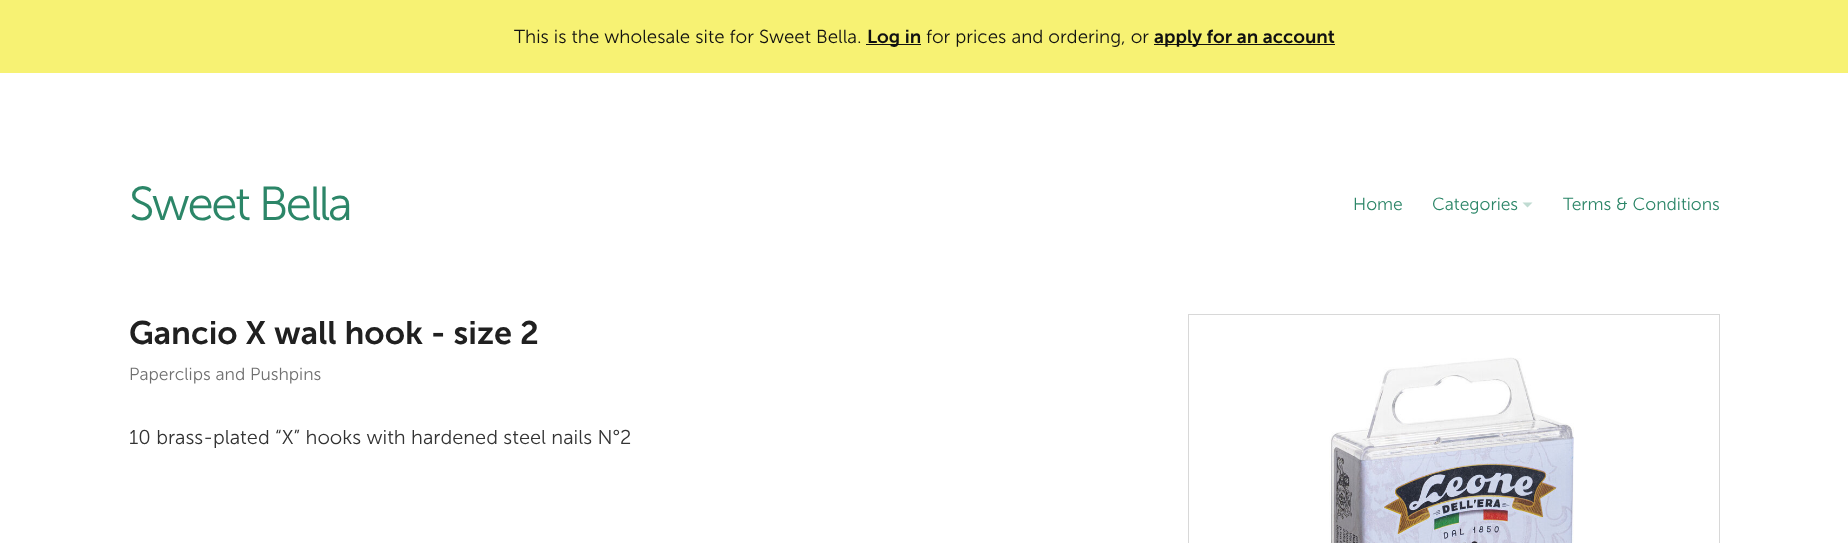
async function draw(canvas) {
	canvas.width = 1848;
	canvas.height = 543;
	const c = canvas.getContext('2d');
	c.miterLimit = 4;
	c.fontKerning = 'normal';
	async function loadImage(src) {
		const img = new Image();
		img.src = src;
		await img.decode();
		return img;
	}

	c.fillStyle = '#fff';
	c.fillRect(0, 0, 1848, 543);
	c.fillStyle = '#f7f273';
	c.fillRect(0, 0, 1848, 73);
	c.font = '300 18.75px "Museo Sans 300"';
	c.fillStyle = '#111';
	c.fillText('This is the wholesale site for Sweet Bella.', 514, 43);
	c.fillRect(866, 44, 55, 1);
	c.font = '600 18.75px "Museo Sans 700"';
	c.fillText('Log in', 867, 43);
	c.font = '300 18.75px "Museo Sans 300"';
	c.fillText('for prices and ordering, or', 926, 43);
	c.fillRect(1154, 44, 181, 1);
	c.font = '600 18.75px "Museo Sans 700"';
	c.fillText('apply for an account', 1154, 43);
	c.letterSpacing = '-2.5px';
	c.font = '300 47.5px "Museo Sans 300"';
	c.fillStyle = '#2c8668';
	c.fillText('Sweet Bella', 129, 220);
	c.letterSpacing = '0px';
	c.font = '300 17.5px "Museo Sans 300"';
	c.fillText('Home', 1353, 210);
	c.fillText('Categories', 1432, 210);
	c.fillStyle = '#c0dbd2';
	c.beginPath();
	c.moveTo(1522.5, 202.5);
	c.lineTo(1532.5, 202.5);
	c.lineTo(1527.5, 207.5);
	c.closePath();
	c.fill();
	c.fillStyle = '#2c8668';
	c.fillText('Terms & Conditions', 1563, 210);
	c.font = '600 32.5px "Museo Sans 700"';
	c.fillStyle = '#202020';
	c.fillText('Gancio X wall hook - size 2', 129, 344);
	c.font = '300 17.5px "Museo Sans 300"';
	c.fillStyle = '#707070';
	c.fillText('Paperclips and Pushpins', 129, 380);
	c.strokeStyle = '#d8d8d8';
	c.strokeRect(1188.5, 314.5, 531, 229);
	c.drawImage(await loadImage('img1.png'), 1329, 357, 245, 186);
	c.font = '300 20px "Museo Sans 300"';
	c.fillStyle = '#333';
	c.fillText('10 brass-plated “X” hooks with hardened steel nails N°2', 129, 444);
}

draw(document.querySelector('canvas'));
